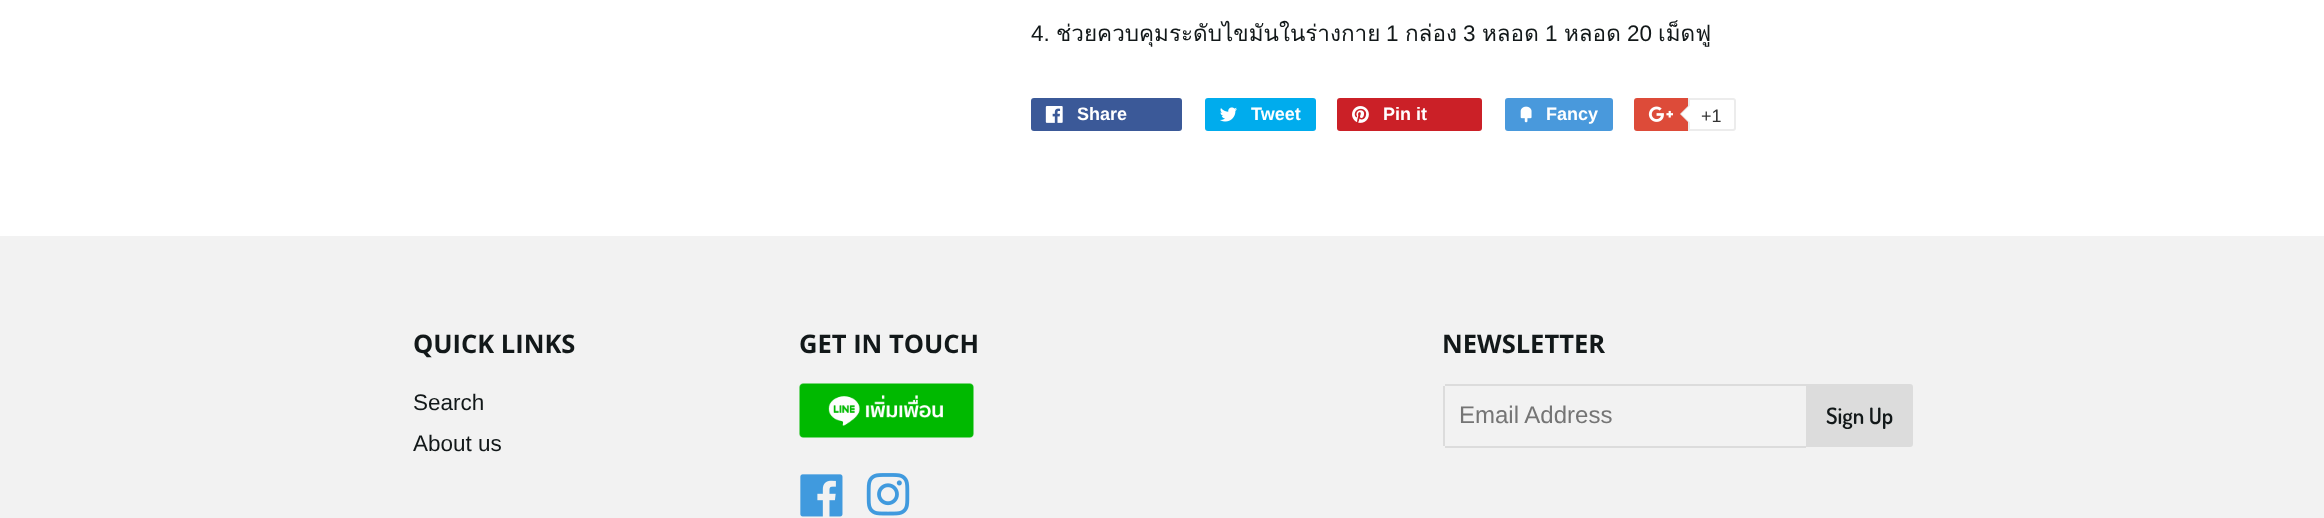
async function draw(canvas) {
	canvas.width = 2324;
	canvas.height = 518;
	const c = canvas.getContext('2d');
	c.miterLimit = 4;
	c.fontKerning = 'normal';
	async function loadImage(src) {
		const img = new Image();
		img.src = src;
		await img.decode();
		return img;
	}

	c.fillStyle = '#fff';
	c.fillRect(0, 0, 2324, 518);
	c.font = '22.5px Liberation Sans';
	c.fillStyle = '#121819';
	c.fillText('4.', 1031, 41);
	c.font = '22.5px Loma';
	c.fillText('ช่วยควบคุมระดับไขมันในร่างกาย', 1056, 41);
	c.font = '22.5px Liberation Sans';
	c.fillText('1', 1386, 41);
	c.font = '22.5px Loma';
	c.fillText('กล่อง', 1405, 41);
	c.font = '22.5px Liberation Sans';
	c.fillText('3', 1463, 41);
	c.font = '22.5px Loma';
	c.fillText('หลอด', 1482, 41);
	c.font = '22.5px Liberation Sans';
	c.fillText('1', 1545, 41);
	c.font = '22.5px Loma';
	c.fillText('หลอด', 1564, 41);
	c.font = '22.5px Liberation Sans';
	c.fillText('20', 1627, 41);
	c.font = '22.5px Loma';
	c.fillText('เม็ดฟู', 1658, 41);
	c.fillStyle = '#3b5998';
	c.beginPath();
	c.roundRect(1031, 98, 151, 33, 3);
	c.fill();
	c.drawImage(await loadImage('img1.png'), 1045, 106, 18, 17);
	c.font = 'bold 18px Liberation Sans';
	c.fillStyle = '#fff';
	c.fillText('Share', 1077, 120);
	c.fillStyle = '#00aced';
	c.beginPath();
	c.roundRect(1205, 98, 111, 33, 3);
	c.fill();
	c.drawImage(await loadImage('img2.png'), 1220, 107, 17, 15);
	c.fillStyle = '#fff';
	c.fillText('Tweet', 1251, 120);
	c.fillStyle = '#cb2027';
	c.beginPath();
	c.roundRect(1337, 98, 145, 33, 3);
	c.fill();
	c.drawImage(await loadImage('img3.png'), 1352, 106, 17, 17);
	c.fillStyle = '#fff';
	c.fillText('Pin it', 1383, 120);
	c.fillStyle = '#4999dc';
	c.beginPath();
	c.roundRect(1505, 98, 108, 33, 3);
	c.fill();
	c.drawImage(await loadImage('img4.png'), 1520, 106, 12, 17);
	c.fillStyle = '#fff';
	c.fillText('Fancy', 1546, 120);
	c.fillStyle = '#dd4b39';
	c.beginPath();
	c.roundRect(1634, 98, 99, 33, 3);
	c.fill();
	c.drawImage(await loadImage('img5.png'), 1648, 106, 25, 16);
	c.fillStyle = '#fff';
	c.beginPath();
	c.roundRect(1689, 99, 46, 31, [0, 2, 2, 0]);
	c.fill();
	c.strokeStyle = '#ececec';
	c.lineWidth = 2;
	c.stroke();
	c.fillStyle = '#ececec';
	c.beginPath();
	c.moveTo(1689, 105);
	c.lineTo(1689, 123);
	c.lineTo(1680, 114);
	c.closePath();
	c.fill();
	c.fillStyle = '#fff';
	c.beginPath();
	c.moveTo(1690.5, 105);
	c.lineTo(1690.5, 123);
	c.lineTo(1681.5, 114);
	c.closePath();
	c.fill();
	c.font = '18px Liberation Sans';
	c.fillStyle = '#333';
	c.fillText('+1', 1701, 122);
	c.fillStyle = '#f2f2f2';
	c.fillRect(0, 236, 2324, 282);
	c.font = 'bold 25.5px Open Sans';
	c.fillStyle = '#121819';
	c.fillText('QUICK LINKS', 413, 353);
	c.font = '22.5px Liberation Sans';
	c.fillText('Search', 413, 410);
	c.fillText('About us', 413, 451);
	c.font = 'bold 25.5px Open Sans';
	c.fillText('GET IN TOUCH', 799, 353);
	c.drawImage(await loadImage('img6.png'), 799, 383, 175, 55);
	c.drawImage(await loadImage('img7.png'), 800, 474, 43, 43);
	c.drawImage(await loadImage('img8.png'), 866, 473, 44, 43);
	c.fillText('NEWSLETTER', 1442, 353);
	for (const [x, y, w, h, color] of [
		[1445, 384, 361, 2, '#dcdcdc'],
		[1445, 446, 361, 2, '#dcdcdc'],
		[1443, 386, 2, 60, '#dcdcdc'],
	]) {
		c.fillStyle = color;
		c.fillRect(x, y, w, h);
	}
	c.font = '24px Liberation Sans';
	c.fillStyle = '#757575';
	c.fillText('Email Address', 1459, 423);
	c.fillStyle = '#dcdcdc';
	c.beginPath();
	c.roundRect(1806, 384, 107, 63, [0, 3, 3, 0]);
	c.fill();
	c.font = '600 22.5px Dosis';
	c.fillStyle = '#121819';
	c.fillText('Sign Up', 1826, 424);
}

draw(document.querySelector('canvas'));
